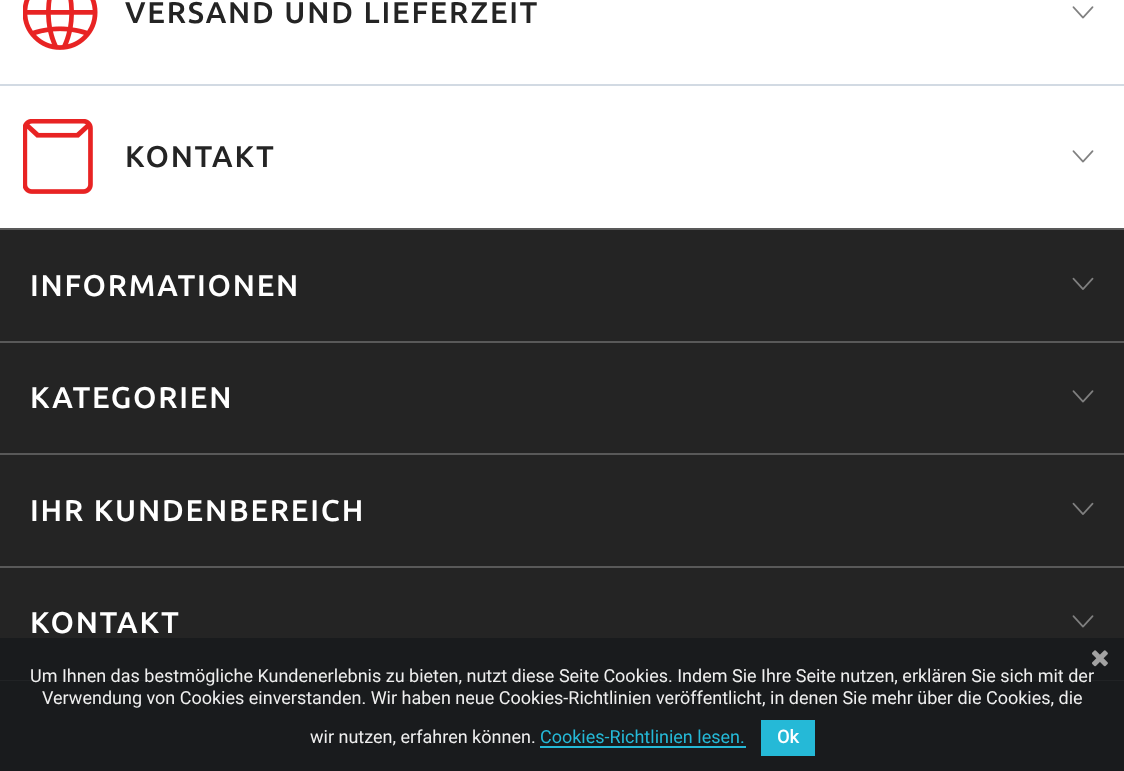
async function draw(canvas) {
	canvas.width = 1124;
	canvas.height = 771;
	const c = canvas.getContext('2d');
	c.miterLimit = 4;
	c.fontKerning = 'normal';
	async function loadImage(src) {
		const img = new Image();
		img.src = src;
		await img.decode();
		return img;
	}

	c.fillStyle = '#fff';
	c.fillRect(0, 0, 1124, 771);
	c.drawImage(await loadImage('img1.png'), 23, 0, 75, 50);
	c.letterSpacing = '1.8px';
	c.font = '500 30px Ubuntu';
	c.fillStyle = '#242424';
	c.fillText('VERSAND UND LIEFERZEIT', 125, 23);
	c.drawImage(await loadImage('img2.png'), 1072, 6, 22, 13);
	c.fillStyle = '#d2dae3';
	c.fillRect(0, 84, 1124, 2);
	c.drawImage(await loadImage('img3.png'), 23, 119, 70, 75);
	c.fillStyle = '#242424';
	c.fillText('KONTAKT', 125, 167);
	c.drawImage(await loadImage('img2.png'), 1072, 150, 22, 13);
	for (const [x, y, w, h, color] of [
		[0, 230, 1124, 408, '#242424'],
		[0, 638, 1124, 42, '#191b1d'],
		[0, 680, 1124, 1, '#212325'],
		[0, 228, 1124, 2, '#595959'],
	]) {
		c.fillStyle = color;
		c.fillRect(x, y, w, h);
	}
	c.fillStyle = '#fff';
	c.fillText('INFORMATIONEN', 30, 296);
	c.drawImage(await loadImage('img4.png'), 1072, 277, 22, 13);
	c.fillStyle = '#595959';
	c.fillRect(0, 341, 1124, 2);
	c.fillStyle = '#fff';
	c.fillText('KATEGORIEN', 30, 408);
	c.drawImage(await loadImage('img5.png'), 1072, 390, 22, 13);
	c.fillStyle = '#595959';
	c.fillRect(0, 453, 1124, 2);
	c.fillStyle = '#fff';
	c.fillText('IHR KUNDENBEREICH', 30, 521);
	c.drawImage(await loadImage('img4.png'), 1072, 502, 22, 13);
	c.fillStyle = '#595959';
	c.fillRect(0, 566, 1124, 2);
	c.fillStyle = '#fff';
	c.fillText('KONTAKT', 30, 633);
	c.drawImage(await loadImage('img5.png'), 1072, 615, 22, 13);
	c.fillStyle = '#191b1d';
	c.fillRect(0, 681, 1124, 90);
	c.drawImage(await loadImage('img6.png'), 1092, 650, 16, 17);
	c.letterSpacing = '0px';
	c.font = '18px Roboto';
	c.fillStyle = '#efefef';
	for (const [text, x, y] of [
		['Um Ihnen das bestmögliche Kundenerlebnis zu bieten, nutzt diese Seite Cookies. Indem Sie Ihre Seite nutzen, erklären Sie sich mit der', 30, 682],
		['Verwendung von Cookies einverstanden. Wir haben neue Cookies-Richtlinien veröffentlicht, in denen Sie mehr über die Cookies, die', 42, 704],
		['wir nutzen, erfahren können.', 310, 743],
	]) {
		c.fillText(text, x, y);
	}
	c.fillStyle = '#25b9d7';
	c.fillText('Cookies-Richtlinien lesen.', 540, 743);
	c.fillRect(540, 746, 206, 2);
	c.fillRect(761, 720, 54, 36);
	c.font = 'bold 18px Roboto';
	c.fillStyle = '#fff';
	c.fillText('Ok', 777, 743);
}

draw(document.querySelector('canvas'));
